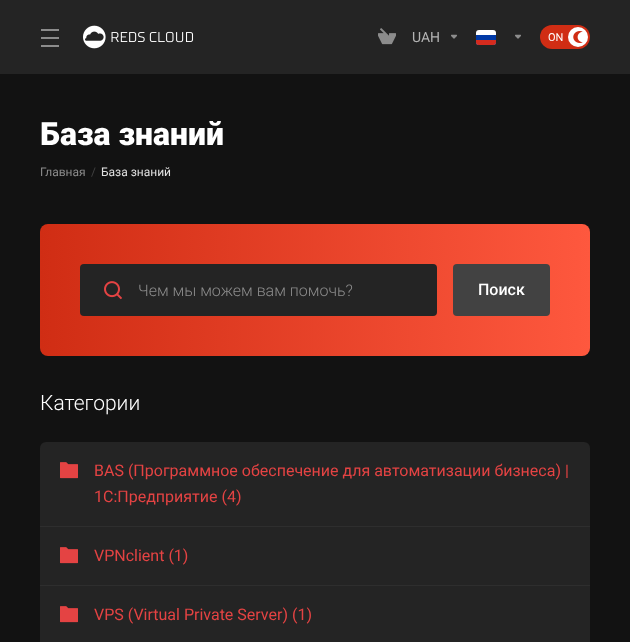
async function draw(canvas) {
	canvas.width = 630;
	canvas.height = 642;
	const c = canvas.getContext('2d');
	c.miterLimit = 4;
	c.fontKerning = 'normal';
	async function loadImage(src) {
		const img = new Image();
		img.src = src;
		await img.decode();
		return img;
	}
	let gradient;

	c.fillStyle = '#121212';
	c.fillRect(0, 0, 630, 642);
	for (const [x, y, w, h, color] of [
		[0, 0, 630, 74, '#242424'],
		[41, 29, 18, 2, '#8c8c8c'],
		[41, 37, 18, 2, '#8c8c8c'],
		[41, 45, 18, 2, '#8c8c8c'],
	]) {
		c.fillStyle = color;
		c.fillRect(x, y, w, h);
	}
	c.drawImage(await loadImage('img1.png'), 83, 25, 111, 24);
	c.drawImage(await loadImage('img2.png'), 378, 28, 18, 17);
	c.font = '14px Roboto';
	c.fillStyle = '#b3b3b3';
	c.fillText('UAH', 412, 42);
	c.drawImage(await loadImage('img3.png'), 451, 34, 6, 5);
	c.fillStyle = '#fff';
	c.beginPath();
	c.roundRect(476, 30, 20, 15, 3);
	c.fill();
	c.fillStyle = '#0039a6';
	c.beginPath();
	c.roundRect(476, 35, 20, 10, [0, 0, 3, 3]);
	c.fill();
	c.fillStyle = '#d52b1e';
	c.beginPath();
	c.roundRect(476, 40, 20, 5, [0, 0, 3, 3]);
	c.fill();
	c.drawImage(await loadImage('img3.png'), 515, 34, 6, 5);
	c.fillStyle = '#d02d14';
	c.beginPath();
	c.roundRect(540, 25, 50, 24, 12);
	c.fill();
	c.font = '11px Roboto';
	c.fillStyle = '#fff';
	c.fillText('ON', 548, 41);
	c.beginPath();
	c.arc(578, 37, 10, 0, 2 * Math.PI);
	c.fill();
	c.drawImage(await loadImage('img4.png'), 573, 31, 10, 12);
	c.font = '900 32px Roboto';
	c.fillText('База знаний', 40, 145);
	c.font = '12px Roboto';
	c.fillStyle = '#8c8c8c';
	c.fillText('Главная', 40, 176);
	c.fillStyle = '#424242';
	c.fillText('/', 91, 176);
	c.fillStyle = '#e0e0e0';
	c.fillText('База знаний', 101, 176);
	gradient = c.createLinearGradient(40, 290, 590, 290);
	gradient.addColorStop(0, '#d02d14');
	gradient.addColorStop(1, '#fe583e');
	c.fillStyle = gradient;
	c.beginPath();
	c.roundRect(40, 224, 550, 132, 8);
	c.fill();
	c.fillStyle = '#242424';
	c.beginPath();
	c.roundRect(80, 264, 357, 52, 4);
	c.fill();
	c.drawImage(await loadImage('img5.png'), 104, 281, 18, 19);
	c.font = '300 16px Roboto';
	c.fillStyle = '#8c8c8c';
	c.fillText('Чем мы можем вам помочь?', 138, 296);
	c.fillStyle = '#424242';
	c.beginPath();
	c.roundRect(453, 264, 97, 52, 4);
	c.fill();
	c.font = '500 16px Roboto';
	c.fillStyle = '#fff';
	c.fillText('Поиск', 478, 295);
	c.font = '300 21px Roboto';
	c.fillText('Категории', 40, 410);
	c.fillStyle = '#242424';
	c.beginPath();
	c.roundRect(40, 442, 550, 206, 6);
	c.fill();
	c.fillStyle = '#2e2e2e';
	c.fillRect(40, 526, 550, 1);
	c.drawImage(await loadImage('img6.png'), 60, 462, 18, 17);
	c.font = '16px Roboto';
	c.fillStyle = '#e44343';
	c.fillText('BAS (Программное обеспечение для автоматизации бизнеса) |', 94, 476);
	c.fillText('1С:Предприятие (4)', 94, 502);
	c.fillStyle = '#2e2e2e';
	c.fillRect(40, 585, 550, 1);
	c.drawImage(await loadImage('img6.png'), 60, 547, 18, 17);
	c.fillStyle = '#e44343';
	c.fillText('VPNclient (1)', 94, 561);
	c.drawImage(await loadImage('img6.png'), 60, 606, 18, 17);
	c.fillText('VPS (Virtual Private Server) (1)', 94, 620);
}

draw(document.querySelector('canvas'));
